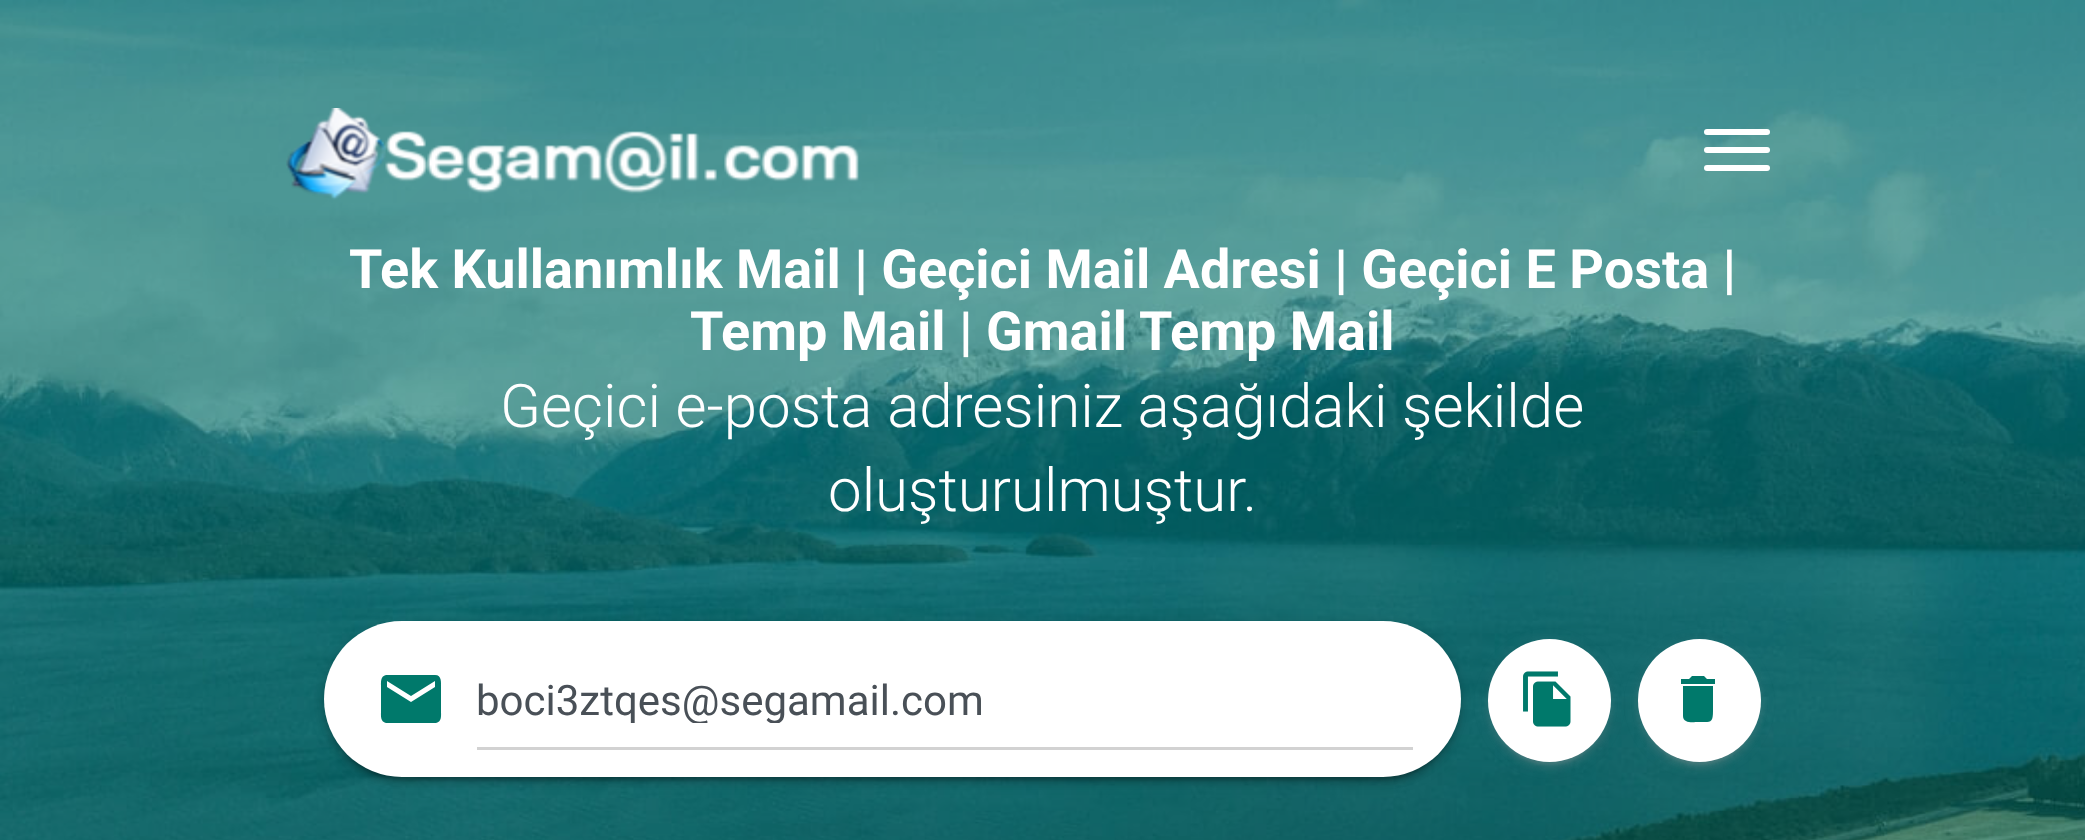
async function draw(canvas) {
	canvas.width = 2085;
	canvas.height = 840;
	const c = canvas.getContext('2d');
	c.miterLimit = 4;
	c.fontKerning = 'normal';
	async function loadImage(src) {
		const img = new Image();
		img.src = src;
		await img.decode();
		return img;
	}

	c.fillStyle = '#fff';
	c.fillRect(0, 0, 2085, 840);
	c.drawImage(await loadImage('img2.png'), 0, 0, 2085, 840);
	c.drawImage(await loadImage('img1.png'), 286, 108, 573, 92);
	c.beginPath();
	c.roundRect(1704, 129, 66, 6, 3);
	c.fill();
	c.beginPath();
	c.roundRect(1704, 147, 66, 6, 3);
	c.fill();
	c.beginPath();
	c.roundRect(1704, 165, 66, 6, 3);
	c.fill();
	c.font = 'bold 54px Roboto';
	c.fillText('Tek Kullanımlık Mail | Geçici Mail Adresi | Geçici E Posta |', 349, 288);
	c.fillText('Temp Mail | Gmail Temp Mail', 690, 350);
	c.font = '300 60px Roboto';
	c.fillText('Geçici e-posta adresiniz aşağıdaki şekilde', 500, 427);
	c.fillText('oluşturulmuştur.', 828, 511);
	c.fillStyle = '#0000001f';
	c.filter = 'blur(7.5px)';
	c.beginPath();
	c.roundRect(324, 624, 1137, 156, 78);
	c.fill();
	c.filter = 'none';
	c.fillStyle = '#00000033';
	c.filter = 'blur(1.5px)';
	c.beginPath();
	c.roundRect(330, 636, 1125, 144, 72);
	c.fill();
	c.filter = 'none';
	c.fillStyle = '#00000024';
	c.filter = 'blur(3px)';
	c.beginPath();
	c.roundRect(324, 627, 1137, 156, 78);
	c.fill();
	c.filter = 'none';
	c.fillStyle = '#fff';
	c.beginPath();
	c.roundRect(324, 621, 1137, 156, 78);
	c.fill();
	c.fillStyle = '#00796b';
	c.beginPath();
	c.moveTo(435, 687);
	c.lineTo(435, 681);
	c.lineTo(411, 696);
	c.lineTo(387, 681);
	c.lineTo(387, 687);
	c.lineTo(411, 702);
	c.closePath();
	c.moveTo(435, 675);
	c.bezierCurveTo(442, 675, 441, 683, 441, 687);
	c.lineTo(441, 711);
	c.bezierCurveTo(441, 715, 442, 722, 436, 723);
	c.lineTo(386, 723);
	c.bezierCurveTo(380, 722, 381, 715, 381, 711);
	c.lineTo(381, 687);
	c.bezierCurveTo(381, 683, 380, 676, 386, 675);
	c.closePath();
	c.fill();
	c.fillStyle = '#d2d2d2';
	c.fillRect(477, 747, 936, 3);
	c.save();
	c.beginPath();
	c.rect(477, 675, 936, 48);
	c.clip();
	c.font = '42px Roboto';
	c.fillStyle = '#495057';
	c.fillText('boci3ztqes@segamail.com', 476, 715);
	c.restore();
	c.fillStyle = '#9999991f';
	c.filter = 'blur(7.5px)';
	c.beginPath();
	c.roundRect(1488, 642, 123, 123, 61.5);
	c.fill();
	c.filter = 'none';
	c.fillStyle = '#99999933';
	c.filter = 'blur(1.5px)';
	c.beginPath();
	c.roundRect(1494, 654, 111, 111, 55.5);
	c.fill();
	c.filter = 'none';
	c.fillStyle = '#99999924';
	c.filter = 'blur(3px)';
	c.beginPath();
	c.roundRect(1488, 645, 123, 123, 61.5);
	c.fill();
	c.filter = 'none';
	c.fillStyle = '#fff';
	c.beginPath();
	c.arc(1549.5, 700.5, 61.5, 0, 2 * Math.PI);
	c.fill();
	c.drawImage(await loadImage('img3.png'), 1523, 671, 48, 56);
	c.fillStyle = '#9999991f';
	c.filter = 'blur(7.5px)';
	c.beginPath();
	c.roundRect(1638, 642, 123, 123, 61.5);
	c.fill();
	c.filter = 'none';
	c.fillStyle = '#99999933';
	c.filter = 'blur(1.5px)';
	c.beginPath();
	c.roundRect(1644, 654, 111, 111, 55.5);
	c.fill();
	c.filter = 'none';
	c.fillStyle = '#99999924';
	c.filter = 'blur(3px)';
	c.beginPath();
	c.roundRect(1638, 645, 123, 123, 61.5);
	c.fill();
	c.filter = 'none';
	c.fillStyle = '#fff';
	c.beginPath();
	c.arc(1699.5, 700.5, 61.5, 0, 2 * Math.PI);
	c.fill();
	c.fillStyle = '#00796b';
	c.beginPath();
	c.moveTo(1715, 679);
	c.lineTo(1715, 684);
	c.lineTo(1681, 684);
	c.lineTo(1681, 679);
	c.lineTo(1689, 679);
	c.lineTo(1692, 676);
	c.lineTo(1704, 676);
	c.lineTo(1707, 679);
	c.closePath();
	c.moveTo(1683, 716);
	c.lineTo(1683, 686);
	c.lineTo(1713, 686);
	c.lineTo(1713, 711);
	c.bezierCurveTo(1713, 724, 1710, 722, 1698, 722);
	c.bezierCurveTo(1694, 722, 1683, 724, 1683, 716);
	c.closePath();
	c.fill();
}

draw(document.querySelector('canvas'));
